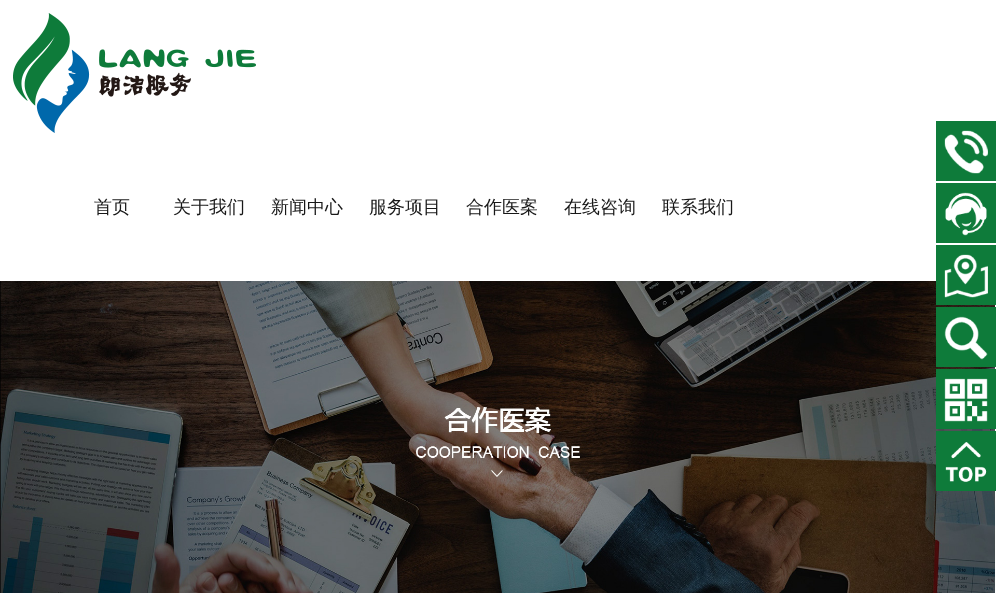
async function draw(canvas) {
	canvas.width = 996;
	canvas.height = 606;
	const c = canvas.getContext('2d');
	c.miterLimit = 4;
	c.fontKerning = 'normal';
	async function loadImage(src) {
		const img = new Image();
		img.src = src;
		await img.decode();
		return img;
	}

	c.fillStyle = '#fff';
	c.fillRect(0, 0, 996, 606);
	c.drawImage(await loadImage('img1.png'), 13, 13, 243, 120);
	c.font = '500 18px WenQuanYi Zen Hei';
	c.fillStyle = '#181818';
	for (const [text, x, y] of [
		['首页', 94, 213],
		['关于我们', 173, 213],
		['新闻中心', 271, 213],
		['服务项目', 369, 213],
		['合作医案', 466, 213],
		['在线咨询', 564, 213],
		['联系我们', 662, 213],
	]) {
		c.fillText(text, x, y);
	}
	c.fillStyle = '#0e7b3a';
	c.fillRect(936, 121, 60, 60);
	c.drawImage(await loadImage('img2.png'), 944, 130, 44, 44);
	c.fillRect(936, 183, 60, 60);
	c.drawImage(await loadImage('img3.png'), 945, 192, 42, 44);
	c.drawImage(await loadImage('img8.png'), 0, 281, 996, 312);
	c.fillRect(936, 245, 60, 60);
	c.drawImage(await loadImage('img4.png'), 944, 254, 44, 44);
	c.fillRect(936, 307, 60, 60);
	c.drawImage(await loadImage('img5.png'), 944, 316, 44, 44);
	c.fillRect(936, 369, 60, 60);
	c.drawImage(await loadImage('img6.png'), 944, 378, 44, 44);
	c.fillRect(936, 431, 60, 60);
	c.drawImage(await loadImage('img7.png'), 945, 442, 42, 40);
}

draw(document.querySelector('canvas'));
